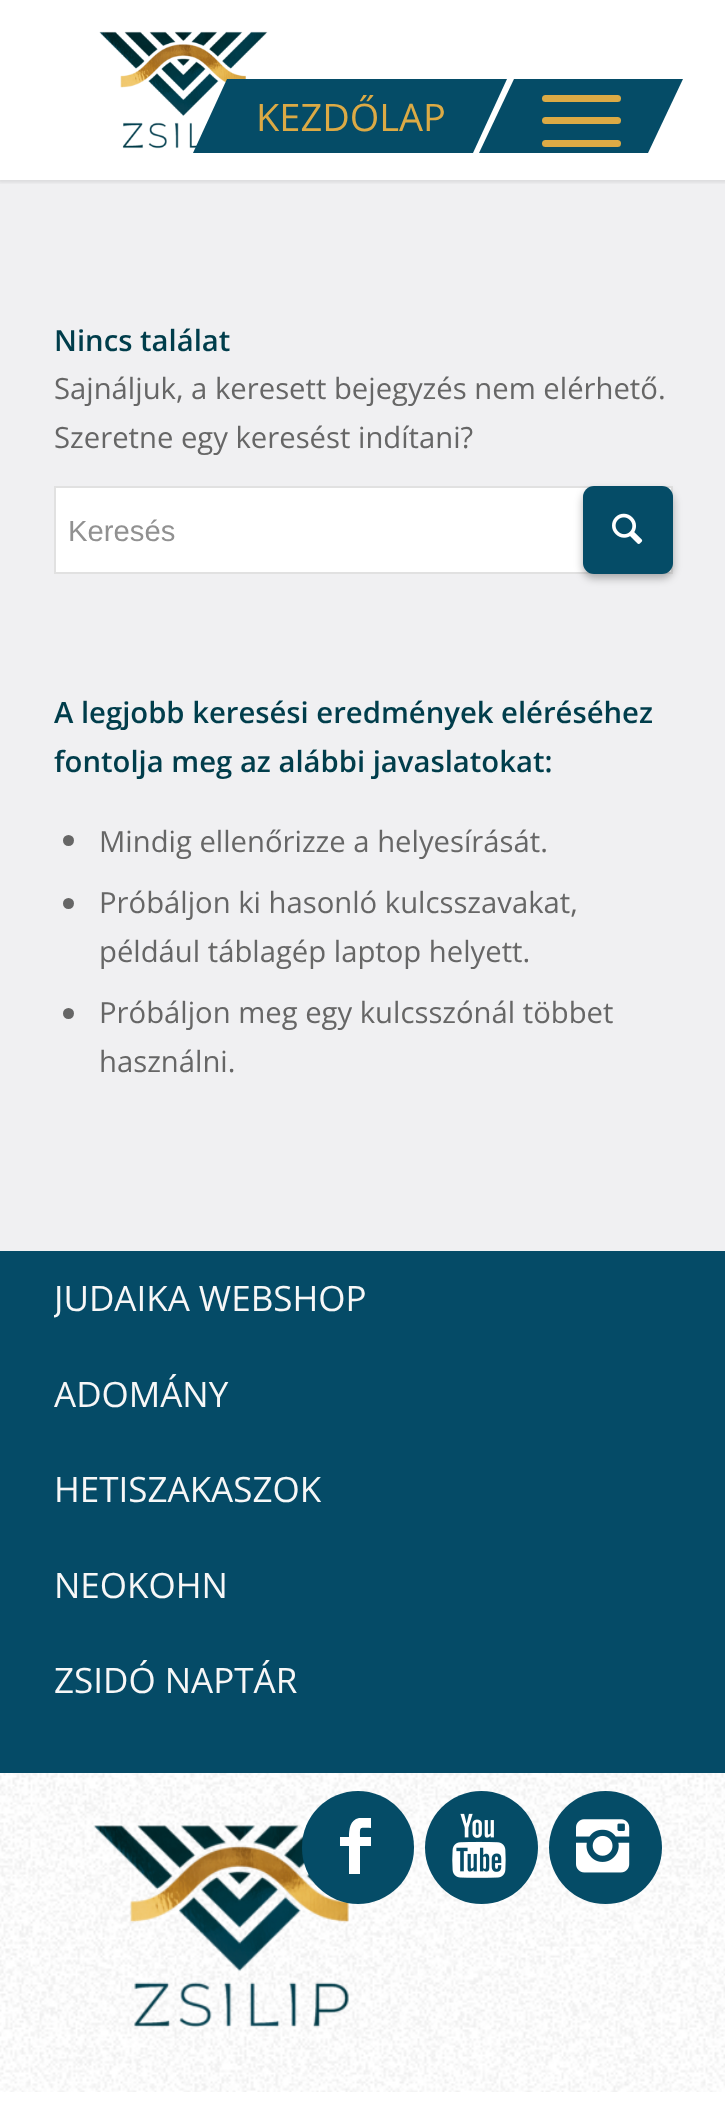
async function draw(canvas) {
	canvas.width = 725;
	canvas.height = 2128;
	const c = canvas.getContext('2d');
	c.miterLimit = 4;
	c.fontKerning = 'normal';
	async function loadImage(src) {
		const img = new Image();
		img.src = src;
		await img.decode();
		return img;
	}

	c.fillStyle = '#fff';
	c.fillRect(0, 0, 725, 2128);
	c.fillStyle = '#f0f0f2';
	c.fillRect(0, 180, 725, 1071);
	c.save();
	c.beginPath();
	c.rect(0, 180, 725, 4);
	c.clip();
	c.fillStyle = '#0000001a';
	c.filter = 'blur(2px)';
	c.beginPath();
	c.rect(-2, -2, 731, 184);
	c.fill();
	c.filter = 'none';
	c.restore();
	c.drawImage(await loadImage('img1.png'), 99, 31, 169, 118);
	c.fillStyle = '#054c67';
	c.beginPath();
	c.moveTo(227, 79);
	c.lineTo(507, 79);
	c.lineTo(473, 153);
	c.lineTo(193, 153);
	c.closePath();
	c.fill();
	c.font = '38px Open Sans';
	c.fillStyle = '#dcaa45';
	c.fillText('KEZDŐLAP', 256, 131);
	c.fillStyle = '#054c67';
	c.beginPath();
	c.moveTo(514, 79);
	c.lineTo(683, 79);
	c.lineTo(648, 153);
	c.lineTo(479, 153);
	c.closePath();
	c.fill();
	c.fillStyle = '#dcaa45';
	c.beginPath();
	c.roundRect(542, 117, 79, 7, 3.5);
	c.fill();
	c.beginPath();
	c.roundRect(542, 95, 79, 7, 3.5);
	c.fill();
	c.beginPath();
	c.roundRect(542, 140, 79, 7, 3.5);
	c.fill();
	c.font = '600 29.25px Open Sans';
	c.fillStyle = '#003d4b';
	c.fillText('Nincs találat', 54, 351);
	c.font = '29.25px Open Sans';
	c.fillStyle = '#666';
	c.fillText('Sajnáljuk, a keresett bejegyzés nem elérhető.', 54, 399);
	c.fillText('Szeretne egy keresést indítani?', 54, 448);
	c.fillStyle = '#fff';
	c.beginPath();
	c.rect(55, 487, 617, 86);
	c.fill();
	c.strokeStyle = '#e1e1e1';
	c.lineWidth = 2;
	c.stroke();
	c.font = '29.25px Liberation Sans';
	c.fillStyle = '#919191';
	c.fillText('Keresés', 68, 541);
	c.fillStyle = '#0000004f';
	c.filter = 'blur(4.5px)';
	c.beginPath();
	c.roundRect(583, 491, 90, 87, 11);
	c.fill();
	c.filter = 'none';
	c.fillStyle = '#054c67';
	c.beginPath();
	c.roundRect(583, 486, 90, 88, 11);
	c.fill();
	c.drawImage(await loadImage('img2.png'), 612, 513, 31, 31);
	c.font = '600 29.25px Open Sans';
	c.fillStyle = '#003d4b';
	c.fillText('A legjobb keresési eredmények eléréséhez', 54, 723);
	c.fillText('fontolja meg az alábbi javaslatokat:', 54, 772);
	c.fillStyle = '#666';
	c.beginPath();
	c.arc(68.5, 840.5, 5.5, 0, 2 * Math.PI);
	c.fill();
	c.font = '29.25px Open Sans';
	c.fillText('Mindig ellenőrizze a helyesírását.', 99, 852);
	c.beginPath();
	c.arc(68.5, 903.5, 5.5, 0, 2 * Math.PI);
	c.fill();
	c.fillText('Próbáljon ki hasonló kulcsszavakat,', 99, 913);
	c.fillText('például táblagép laptop helyett.', 99, 962);
	c.beginPath();
	c.arc(68.5, 1013.5, 5.5, 0, 2 * Math.PI);
	c.fill();
	c.fillText('Próbáljon meg egy kulcsszónál többet', 99, 1023);
	c.fillText('használni.', 99, 1072);
	c.fillStyle = '#054b67';
	c.fillRect(0, 1251, 725, 522);
	c.save();
	c.beginPath();
	c.rect(54, 1276, 619, 49);
	c.clip();
	c.font = '35px Open Sans';
	c.fillStyle = '#f7f7f7';
	c.fillText('JUDAIKA WEBSHOP', 54, 1311);
	c.restore();
	c.font = '35px Open Sans';
	c.fillStyle = '#f7f7f7';
	for (const [text, x, y] of [
		['ADOMÁNY', 54, 1407],
		['HETISZAKASZOK', 54, 1502],
		['NEOKOHN', 54, 1598],
		['ZSIDÓ NAPTÁR', 54, 1693],
	]) {
		c.fillText(text, x, y);
	}
	c.drawImage(await loadImage('img3.png'), 0, 1773, 725, 319);
	c.drawImage(await loadImage('img4.png'), 93, 1825, 256, 203);
	c.fillStyle = '#054c67';
	c.beginPath();
	c.roundRect(302, 1791, 112, 113, 56);
	c.fill();
	c.fillStyle = '#fff';
	c.beginPath();
	c.moveTo(371, 1828);
	c.bezierCurveTo(359, 1828, 360, 1826, 360, 1837);
	c.lineTo(371, 1837);
	c.lineTo(371, 1846);
	c.lineTo(360, 1846);
	c.lineTo(360, 1874);
	c.lineTo(349, 1874);
	c.lineTo(349, 1846);
	c.lineTo(340, 1846);
	c.lineTo(340, 1837);
	c.lineTo(349, 1837);
	c.bezierCurveTo(349, 1829, 350, 1820, 359, 1818);
	c.lineTo(371, 1818);
	c.closePath();
	c.fill();
	c.fillStyle = '#054c67';
	c.beginPath();
	c.arc(481.5, 1847.5, 56.5, 0, 2 * Math.PI);
	c.fill();
	c.drawImage(await loadImage('img5.png'), 452, 1813, 54, 65);
	c.beginPath();
	c.arc(605.5, 1847.5, 56.5, 0, 2 * Math.PI);
	c.fill();
	c.drawImage(await loadImage('img6.png'), 576, 1819, 54, 54);
}

draw(document.querySelector('canvas'));
